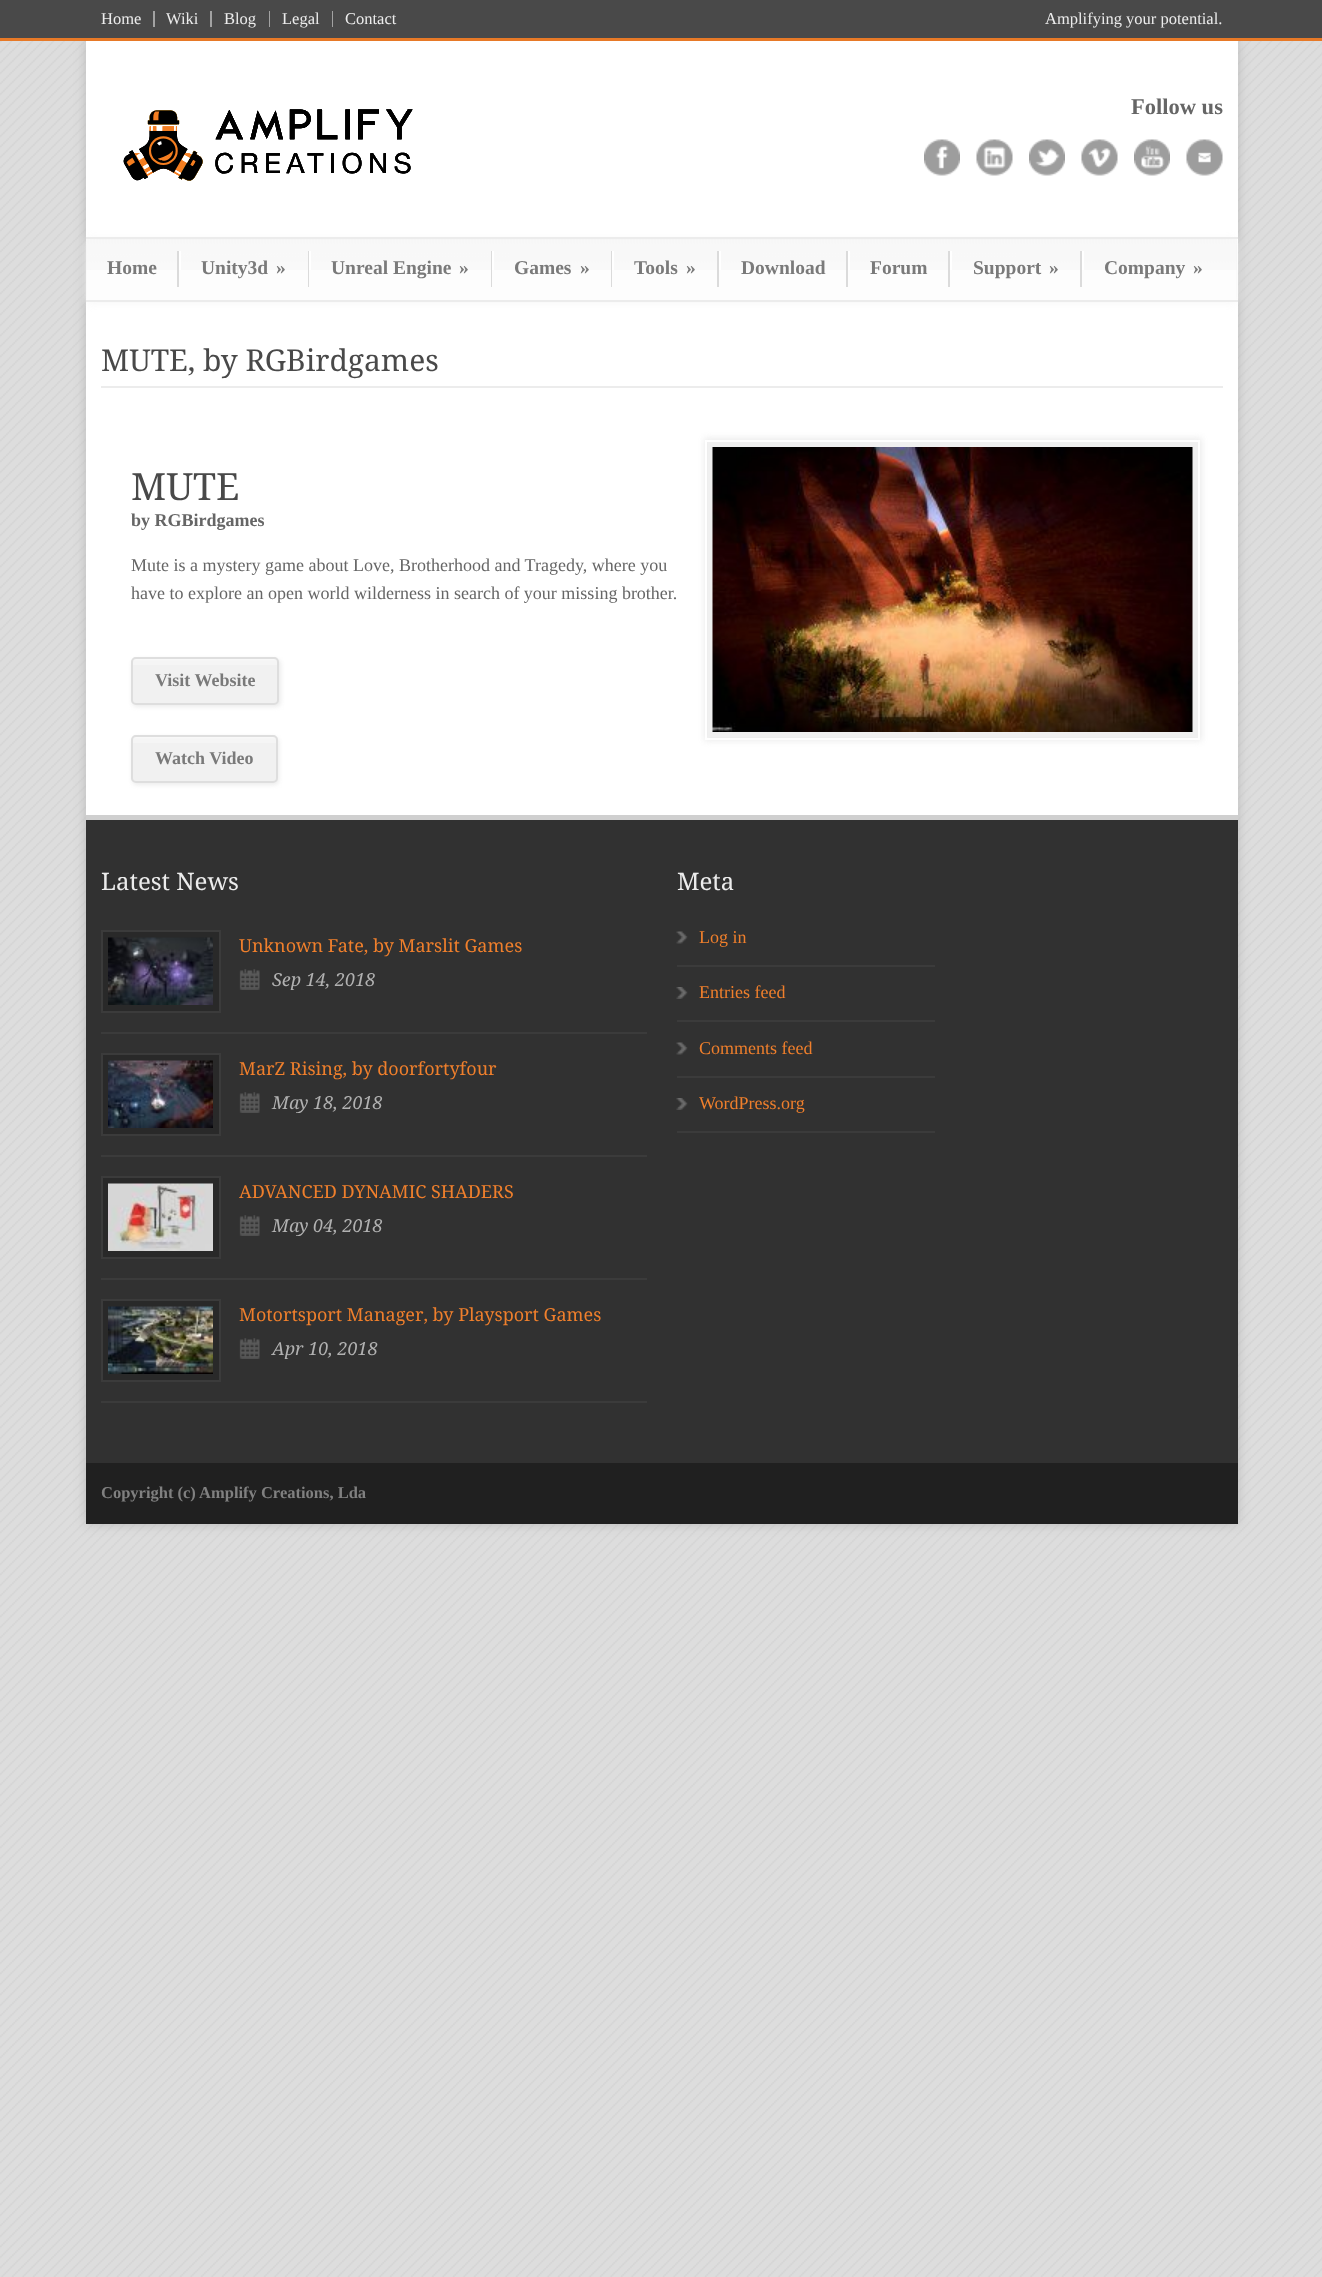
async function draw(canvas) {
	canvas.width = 1322;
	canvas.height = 2277;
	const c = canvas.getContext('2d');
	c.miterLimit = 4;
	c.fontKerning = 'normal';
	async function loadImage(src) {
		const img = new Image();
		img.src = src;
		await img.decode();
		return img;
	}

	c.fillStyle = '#ddd';
	c.fillRect(0, 0, 1322, 2277);
	c.drawImage(await loadImage('img1.png'), 0, 41, 1322, 2236);
	c.fillStyle = '#bbb';
	c.filter = 'blur(6px)';
	c.beginPath();
	c.rect(86, 41, 1152, 1483);
	c.fill();
	c.filter = 'none';
	c.fillStyle = '#494949';
	c.fillRect(0, 0, 1322, 38);
	c.fillStyle = '#a2a2a2';
	c.fillRect(153, 11, 2, 16);
	c.font = '16.5px Liberation Serif';
	c.fillStyle = '#ececec';
	c.fillText('Home', 101, 24);
	c.fillStyle = '#a2a2a2';
	c.fillRect(210, 11, 2, 16);
	c.fillStyle = '#ececec';
	c.fillText('Wiki', 166, 24);
	c.fillStyle = '#a2a2a2';
	c.fillRect(269, 11, 1, 16);
	c.fillStyle = '#ececec';
	c.fillText('Blog', 224, 24);
	c.fillStyle = '#a2a2a2';
	c.fillRect(332, 11, 1, 16);
	c.fillStyle = '#ececec';
	for (const [text, x, y] of [
		['Legal', 282, 24],
		['Contact', 345, 24],
		['Amplifying your potential.', 1045, 24],
	]) {
		c.fillText(text, x, y);
	}
	c.fillStyle = '#e77927';
	c.fillRect(0, 38, 1322, 3);
	c.fillStyle = '#fff';
	c.fillRect(86, 41, 1152, 774);
	c.font = 'bold 22.5px Liberation Serif';
	c.fillStyle = '#666';
	c.fillText('Follow us', 1131, 114);
	c.drawImage(await loadImage('img2.png'), 924, 139, 36, 37);
	c.drawImage(await loadImage('img3.png'), 976, 139, 37, 37);
	c.drawImage(await loadImage('img4.png'), 1029, 139, 36, 37);
	c.drawImage(await loadImage('img5.png'), 1081, 139, 37, 37);
	c.drawImage(await loadImage('img6.png'), 1134, 139, 36, 37);
	c.drawImage(await loadImage('img7.png'), 1186, 139, 37, 37);
	c.drawImage(await loadImage('img8.png'), 123, 109, 290, 72);
	c.fillStyle = '#f5f5f5';
	c.filter = 'blur(4px)';
	c.beginPath();
	c.rect(87, 240, 1149, 62);
	c.fill();
	c.filter = 'none';
	c.fillStyle = '#fdfdfd';
	c.fillRect(87, 240, 1149, 60);
	c.drawImage(await loadImage('img9.png'), 86, 239, 1151, 31);
	for (const [x, y, w, h, color] of [
		[86, 237, 1152, 2, '#ececec'],
		[86, 300, 1152, 2, '#ececec'],
		[177, 251, 2, 36, '#dbdbdb'],
	]) {
		c.fillStyle = color;
		c.fillRect(x, y, w, h);
	}
	c.font = 'bold 19.5px Liberation Serif';
	c.fillStyle = '#7a7a7a';
	c.fillText('Home', 107, 274);
	c.fillStyle = '#dbdbdb';
	c.fillRect(308, 251, 1, 36);
	c.fillStyle = '#fff';
	c.fillRect(179, 251, 2, 19);
	c.fillStyle = '#7a7a7a';
	c.fillText('Unity3d', 201, 274);
	c.fillText('»', 276, 274);
	c.fillStyle = '#dbdbdb';
	c.fillRect(491, 251, 1, 36);
	c.fillStyle = '#fff';
	c.fillRect(309, 251, 2, 19);
	c.fillStyle = '#7a7a7a';
	c.fillText('Unreal Engine', 331, 274);
	c.fillText('»', 459, 274);
	c.fillStyle = '#dbdbdb';
	c.fillRect(611, 251, 1, 36);
	c.fillStyle = '#fff';
	c.fillRect(492, 251, 2, 19);
	c.fillStyle = '#7a7a7a';
	c.fillText('Games', 514, 274);
	c.fillText('»', 580, 274);
	c.fillStyle = '#dbdbdb';
	c.fillRect(717, 251, 2, 36);
	c.fillStyle = '#fff';
	c.fillRect(612, 251, 2, 19);
	c.fillStyle = '#7a7a7a';
	c.fillText('Tools', 634, 274);
	c.fillText('»', 686, 274);
	c.fillStyle = '#dbdbdb';
	c.fillRect(846, 251, 2, 36);
	c.fillStyle = '#fff';
	c.fillRect(719, 251, 2, 19);
	c.fillStyle = '#7a7a7a';
	c.fillText('Download', 741, 274);
	c.fillStyle = '#dbdbdb';
	c.fillRect(948, 251, 2, 36);
	c.fillStyle = '#fff';
	c.fillRect(848, 251, 2, 19);
	c.fillStyle = '#7a7a7a';
	c.fillText('Forum', 870, 274);
	c.fillStyle = '#dbdbdb';
	c.fillRect(1080, 251, 2, 36);
	c.fillStyle = '#fff';
	c.fillRect(950, 251, 2, 19);
	c.fillStyle = '#7a7a7a';
	c.fillText('Support', 973, 274);
	c.fillText('»', 1049, 274);
	c.fillStyle = '#fff';
	c.fillRect(1082, 251, 2, 19);
	c.fillStyle = '#7a7a7a';
	c.fillText('Company', 1104, 274);
	c.fillText('»', 1193, 274);
	c.fillStyle = '#ececec';
	c.fillRect(101, 386, 1122, 2);
	c.font = '30px Droid Serif';
	c.fillStyle = '#494949';
	c.fillText('MUTE, by RGBirdgames', 101, 371);
	c.font = '37.5px Droid Serif';
	c.fillText('MUTE', 131, 500);
	c.font = 'bold 18px Liberation Serif';
	c.fillStyle = '#666';
	c.fillText('by RGBirdgames', 131, 526);
	c.font = '18px Liberation Serif';
	c.fillText('Mute is a mystery game about Love, Brotherhood and Tragedy, where you', 131, 571);
	c.fillText('have to explore an open world wilderness in search of your missing brother.', 131, 599);
	c.fillStyle = '#ececec';
	c.filter = 'blur(2px)';
	c.beginPath();
	c.roundRect(132, 659, 149, 48, 5);
	c.fill();
	c.filter = 'none';
	c.fillStyle = '#f1f1f1';
	c.beginPath();
	c.roundRect(131, 657, 148, 48, 5);
	c.fill();
	c.drawImage(await loadImage('img10.png'), 131, 659, 148, 6);
	c.beginPath();
	c.roundRect(132, 658, 146, 46, 4);
	c.strokeStyle = '#dedede';
	c.lineWidth = 2;
	c.stroke();
	c.font = 'bold 18px Liberation Serif';
	c.fillStyle = '#7a7a7a';
	c.fillText('Visit Website', 155, 686);
	c.fillStyle = '#ececec';
	c.filter = 'blur(2px)';
	c.beginPath();
	c.roundRect(132, 737, 147, 48, 5);
	c.fill();
	c.filter = 'none';
	c.fillStyle = '#f1f1f1';
	c.beginPath();
	c.roundRect(131, 735, 147, 48, 5);
	c.fill();
	c.drawImage(await loadImage('img11.png'), 131, 737, 145, 6);
	c.beginPath();
	c.roundRect(132, 736, 145, 46, 4);
	c.stroke();
	c.fillStyle = '#7a7a7a';
	c.fillText('Watch Video', 155, 764);
	c.fillStyle = '#ececec';
	c.filter = 'blur(3px)';
	c.beginPath();
	c.rect(704, 438, 498, 303);
	c.fill();
	c.filter = 'none';
	c.fillStyle = '#f0f0f0';
	c.fillRect(708, 442, 490, 295);
	c.strokeStyle = '#fff';
	c.strokeRect(706, 441, 493, 298);
	c.drawImage(await loadImage('img12.png'), 712, 447, 481, 285);
	c.fillStyle = '#313131';
	c.fillRect(86, 820, 1152, 643);
	c.fillStyle = '#cfcfcf';
	c.fillRect(86, 815, 1152, 5);
	c.font = '24px Droid Serif';
	c.fillStyle = '#ececec';
	c.fillText('Latest News', 101, 890);
	c.fillStyle = '#3b3b3b';
	c.fillRect(101, 1032, 546, 2);
	c.fillStyle = '#292929';
	c.beginPath();
	c.rect(102, 931, 118, 81);
	c.fill();
	c.strokeStyle = '#3b3b3b';
	c.stroke();
	c.drawImage(await loadImage('img13.png'), 108, 937, 105, 68);
	c.font = '18px Droid Serif';
	c.fillStyle = '#ef7f2c';
	c.fillText('Unknown Fate, by Marslit Games', 239, 952);
	c.drawImage(await loadImage('img14.png'), 239, 969, 21, 21);
	c.save();
	c.beginPath();
	c.rect(239, 933, 408, 57);
	c.clip();
	c.font = 'italic 18px Droid Serif';
	c.fillStyle = '#b1b1b1';
	c.fillText('Sep 14, 2018', 272, 986);
	c.restore();
	c.fillStyle = '#3b3b3b';
	c.fillRect(101, 1155, 546, 2);
	c.fillStyle = '#292929';
	c.beginPath();
	c.rect(102, 1054, 118, 81);
	c.fill();
	c.stroke();
	c.drawImage(await loadImage('img15.png'), 108, 1060, 105, 68);
	c.fillStyle = '#ef7f2c';
	c.fillText('MarZ Rising, by doorfortyfour', 239, 1075);
	c.drawImage(await loadImage('img14.png'), 239, 1092, 21, 21);
	c.save();
	c.beginPath();
	c.rect(239, 1056, 408, 57);
	c.clip();
	c.font = 'italic 18px Droid Serif';
	c.fillStyle = '#b1b1b1';
	c.fillText('May 18, 2018', 272, 1109);
	c.restore();
	c.fillStyle = '#3b3b3b';
	c.fillRect(101, 1278, 546, 2);
	c.fillStyle = '#292929';
	c.beginPath();
	c.rect(102, 1177, 118, 81);
	c.fill();
	c.stroke();
	c.drawImage(await loadImage('img16.png'), 108, 1183, 105, 68);
	c.fillStyle = '#ef7f2c';
	c.fillText('ADVANCED DYNAMIC SHADERS', 239, 1198);
	c.drawImage(await loadImage('img14.png'), 239, 1215, 21, 21);
	c.save();
	c.beginPath();
	c.rect(239, 1179, 408, 57);
	c.clip();
	c.font = 'italic 18px Droid Serif';
	c.fillStyle = '#b1b1b1';
	c.fillText('May 04, 2018', 272, 1232);
	c.restore();
	c.fillStyle = '#3b3b3b';
	c.fillRect(101, 1401, 546, 2);
	c.fillStyle = '#292929';
	c.beginPath();
	c.rect(102, 1300, 118, 81);
	c.fill();
	c.stroke();
	c.drawImage(await loadImage('img17.png'), 108, 1306, 105, 68);
	c.fillStyle = '#ef7f2c';
	c.fillText('Motortsport Manager, by Playsport Games', 239, 1321);
	c.drawImage(await loadImage('img14.png'), 239, 1338, 21, 21);
	c.save();
	c.beginPath();
	c.rect(239, 1302, 408, 57);
	c.clip();
	c.font = 'italic 18px Droid Serif';
	c.fillStyle = '#b1b1b1';
	c.fillText('Apr 10, 2018', 272, 1355);
	c.restore();
	c.font = '24px Droid Serif';
	c.fillStyle = '#ececec';
	c.fillText('Meta', 677, 890);
	c.drawImage(await loadImage('img18.png'), 676, 931, 12, 13);
	c.fillStyle = '#3b3b3b';
	c.fillRect(677, 965, 258, 2);
	c.font = '18px Liberation Serif';
	c.fillStyle = '#ef7f2c';
	c.fillText('Log in', 699, 943);
	c.drawImage(await loadImage('img19.png'), 676, 987, 12, 12);
	c.fillStyle = '#3b3b3b';
	c.fillRect(677, 1020, 258, 2);
	c.fillStyle = '#ef7f2c';
	c.fillText('Entries feed', 699, 998);
	c.drawImage(await loadImage('img18.png'), 676, 1042, 12, 13);
	c.fillStyle = '#3b3b3b';
	c.fillRect(677, 1076, 258, 2);
	c.fillStyle = '#ef7f2c';
	c.fillText('Comments feed', 699, 1054);
	c.drawImage(await loadImage('img19.png'), 676, 1098, 12, 12);
	c.fillStyle = '#3b3b3b';
	c.fillRect(677, 1131, 258, 2);
	c.fillStyle = '#ef7f2c';
	c.fillText('WordPress.org', 699, 1109);
	c.fillStyle = '#202020';
	c.fillRect(86, 1463, 1152, 61);
	c.font = 'bold 16.5px Liberation Serif';
	c.fillStyle = '#808080';
	c.fillText('Copyright (c) Amplify Creations, Lda', 101, 1498);
}

draw(document.querySelector('canvas'));
